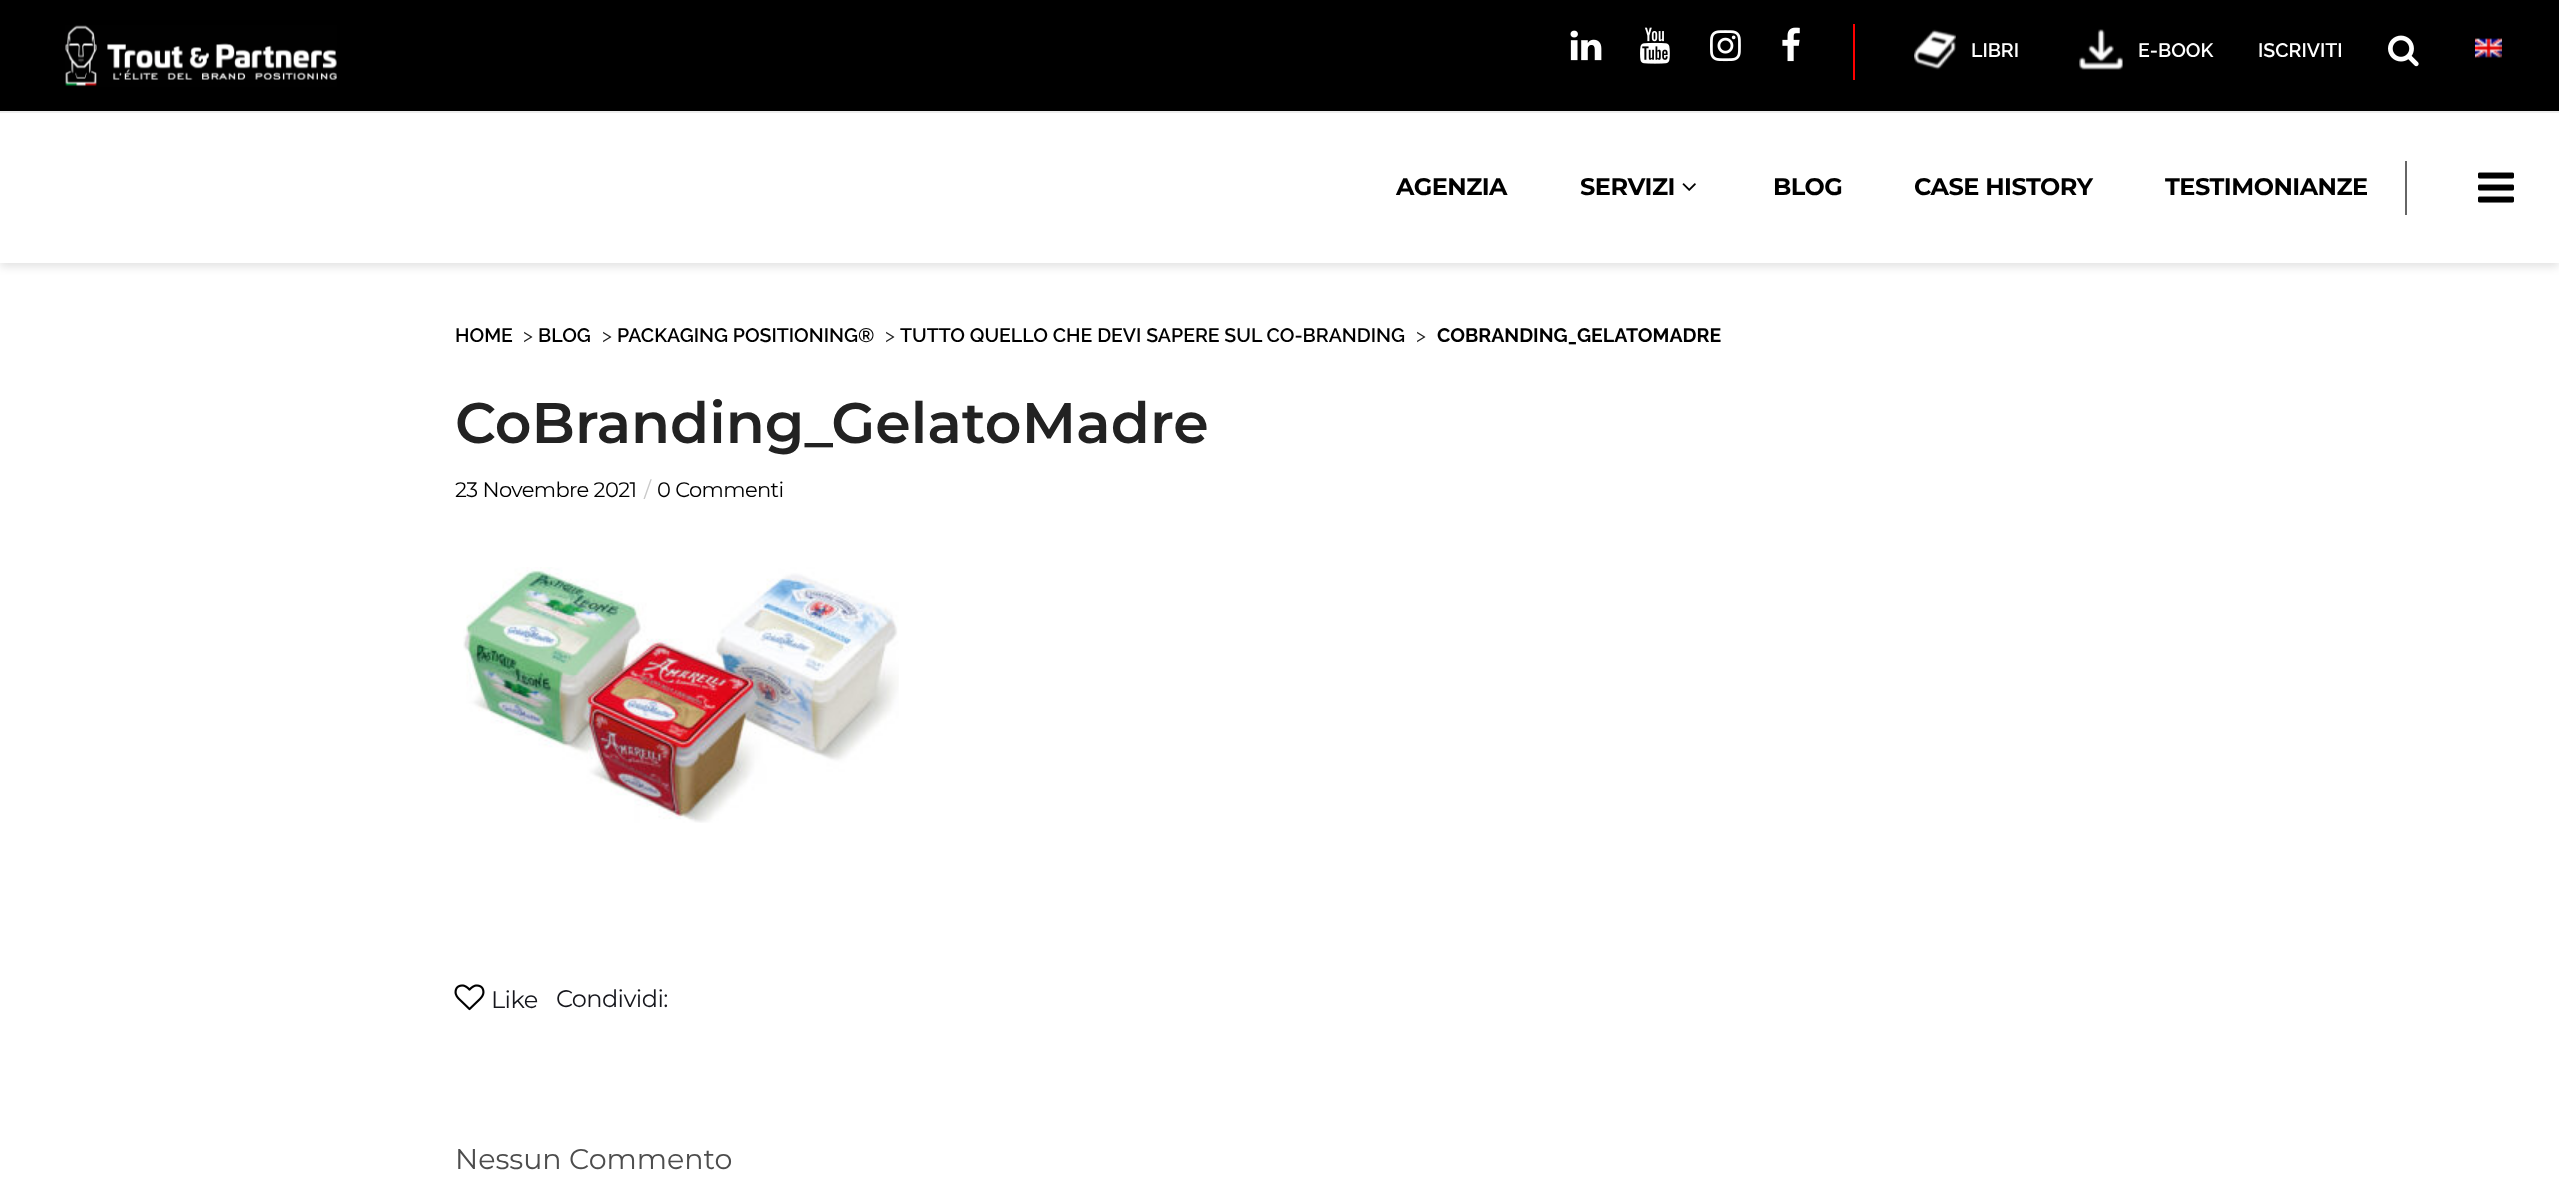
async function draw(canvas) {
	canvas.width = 2559;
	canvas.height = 1200;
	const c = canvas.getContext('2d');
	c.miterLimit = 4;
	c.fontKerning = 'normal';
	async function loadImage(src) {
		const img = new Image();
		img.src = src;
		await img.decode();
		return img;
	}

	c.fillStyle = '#fff';
	c.fillRect(0, 0, 2559, 1200);
	c.fillStyle = '#0000001c';
	c.filter = 'blur(4.5px)';
	c.beginPath();
	c.rect(0, 5, 2559, 262);
	c.fill();
	c.filter = 'none';
	c.fillStyle = '#000';
	c.fillRect(0, 0, 2559, 111);
	c.fillStyle = '#ededed';
	c.fillRect(0, 111, 2559, 2);
	c.drawImage(await loadImage('img1.png'), 65, 25, 272, 62);
	c.fillStyle = '#f00';
	c.fillRect(1853, 24, 2, 56);
	c.drawImage(await loadImage('img2.png'), 1570, 30, 32, 31);
	c.drawImage(await loadImage('img3.png'), 1640, 27, 30, 37);
	c.drawImage(await loadImage('img4.png'), 1710, 30, 31, 32);
	c.drawImage(await loadImage('img5.png'), 1782, 27, 18, 35);
	c.drawImage(await loadImage('img6.png'), 1914, 29, 42, 41);
	c.font = '600 19.5px Raleway';
	c.fillStyle = '#fff';
	c.fillText('LIBRI', 1971, 57);
	c.drawImage(await loadImage('img7.png'), 2079, 29, 44, 41);
	c.fillText('E-BOOK', 2138, 57);
	c.fillText('ISCRIVITI', 2258, 57);
	c.drawImage(await loadImage('img8.png'), 2388, 35, 31, 32);
	c.drawImage(await loadImage('img9.png'), 2475, 38, 27, 20);
	c.fillRect(0, 113, 2559, 150);
	c.letterSpacing = '-0.5px';
	c.font = 'bold 24px Montserrat';
	c.fillStyle = '#000';
	c.fillText('AGENZIA', 1396, 195);
	c.fillText('SERVIZI', 1580, 195);
	c.drawImage(await loadImage('img10.png'), 1682, 183, 14, 8);
	c.fillText('BLOG', 1773, 195);
	c.fillText('CASE HISTORY', 1914, 195);
	c.fillStyle = '#666';
	c.fillRect(2405, 161, 2, 54);
	c.fillStyle = '#000';
	c.fillText('TESTIMONIANZE', 2165, 195);
	c.drawImage(await loadImage('img11.png'), 2478, 172, 36, 31);
	c.letterSpacing = '0px';
	c.font = '600 19.5px Raleway';
	c.fillText('HOME', 455, 342);
	c.font = '19.5px Raleway';
	c.fillStyle = '#222';
	c.fillText('>', 523, 342);
	c.font = '600 19.5px Raleway';
	c.fillStyle = '#000';
	c.fillText('BLOG', 538, 342);
	c.font = '19.5px Raleway';
	c.fillStyle = '#222';
	c.fillText('>', 602, 342);
	c.font = '600 19.5px Raleway';
	c.fillStyle = '#000';
	c.fillText('PACKAGING POSITIONING®', 617, 342);
	c.font = '19.5px Raleway';
	c.fillStyle = '#222';
	c.fillText('>', 885, 342);
	c.font = '600 19.5px Raleway';
	c.fillStyle = '#000';
	c.fillText('TUTTO QUELLO CHE DEVI SAPERE SUL CO-BRANDING', 900, 342);
	c.font = '19.5px Raleway';
	c.fillStyle = '#222';
	c.fillText('>', 1416, 342);
	c.font = 'bold 19.5px Raleway';
	c.fillStyle = '#000';
	c.fillText('COBRANDING_GELATOMADRE', 1437, 342);
	c.font = '600 57px Montserrat';
	c.fillStyle = '#222';
	c.fillText('CoBranding_GelatoMadre', 455, 443);
	c.letterSpacing = '-0.6px';
	c.font = '21px Montserrat';
	c.fillStyle = '#000';
	c.fillText('23 Novembre 2021', 455, 497);
	c.fillStyle = '#c9c9c9';
	c.fillText('/', 644, 497);
	c.fillStyle = '#000';
	c.fillText('0 Commenti', 657, 497);
	c.drawImage(await loadImage('img12.png'), 463, 567, 436, 256);
	c.drawImage(await loadImage('img13.png'), 454, 984, 31, 27);
	c.font = '24px Montserrat';
	c.fillStyle = '#16171d';
	c.fillText('Like', 491, 1008);
	c.fillText('Condividi:', 556, 1007);
	c.letterSpacing = '0px';
	c.font = '28.5px Montserrat';
	c.fillStyle = '#4d4d4d';
	c.fillText('Nessun Commento', 455, 1169);
}

draw(document.querySelector('canvas'));
